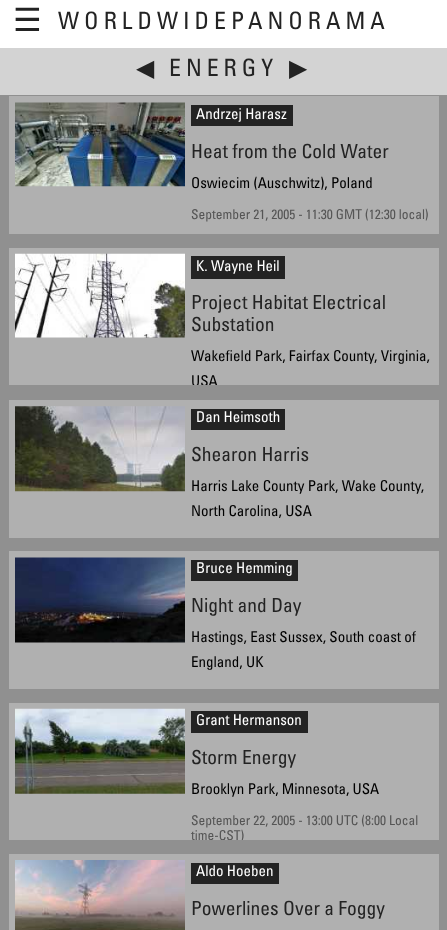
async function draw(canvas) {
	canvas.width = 447;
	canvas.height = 930;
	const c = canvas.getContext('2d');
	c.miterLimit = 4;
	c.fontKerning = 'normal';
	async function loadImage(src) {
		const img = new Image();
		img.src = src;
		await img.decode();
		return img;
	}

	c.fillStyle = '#909090';
	c.fillRect(0, 0, 447, 930);
	c.fillStyle = '#fff';
	c.fillRect(0, 0, 447, 48);
	c.letterSpacing = '5px';
	c.font = '32px DejaVu Sans';
	c.fillStyle = '#232323';
	c.fillText('☰', 13, 31);
	c.font = '23.75px Univers';
	c.fillText('WORLDWIDEPANORAMA', 58, 29);
	c.fillStyle = '#d3d3d3';
	c.fillRect(0, 48, 447, 47);
	c.font = '23.75px DejaVu Sans';
	c.fillStyle = '#232323';
	c.fillText('◀', 136, 76);
	c.font = '23.75px Univers';
	c.fillText('ENERGY', 169, 76);
	c.font = '23.75px DejaVu Sans';
	c.fillText('▶', 289, 76);
	c.fillStyle = '#b0b0b0';
	c.fillRect(9, 96, 430, 138);
	c.drawImage(await loadImage('img1.png'), 15, 102, 170, 85);
	c.fillStyle = '#232323';
	c.fillRect(191, 105, 102, 21);
	c.letterSpacing = '0px';
	c.font = '15px Univers';
	c.fillStyle = '#fff';
	c.fillText('Andrzej Harasz', 196, 119);
	c.font = '19.5px Univers';
	c.fillStyle = '#232323';
	c.fillText('Heat from the Cold Water', 191, 158);
	c.font = '15px Univers';
	c.fillStyle = '#000';
	c.fillText('Oswiecim (Auschwitz), Poland', 191, 188);
	c.font = '13.5px Univers';
	c.fillStyle = '#555';
	c.fillText('September 21, 2005 - 11:30 GMT (12:30 local)', 191, 219);
	c.fillStyle = '#b0b0b0';
	c.fillRect(9, 248, 430, 137);
	c.drawImage(await loadImage('img2.png'), 15, 253, 170, 85);
	c.fillStyle = '#232323';
	c.fillRect(191, 256, 94, 23);
	c.font = '15px Univers';
	c.fillStyle = '#fff';
	c.fillText('K. Wayne Heil', 196, 271);
	c.font = '19.5px Univers';
	c.fillStyle = '#232323';
	c.fillText('Project Habitat Electrical', 191, 309);
	c.fillText('Substation', 191, 331);
	c.font = '15px Univers';
	c.fillStyle = '#000';
	c.fillText('Wakefield Park, Fairfax County, Virginia,', 191, 361);
	c.save();
	c.beginPath();
	c.rect(9, 248, 430, 137);
	c.clip();
	c.fillText('USA', 191, 386);
	c.restore();
	c.fillStyle = '#b0b0b0';
	c.fillRect(9, 400, 430, 138);
	c.drawImage(await loadImage('img3.png'), 15, 406, 170, 86);
	c.fillStyle = '#232323';
	c.fillRect(191, 409, 94, 21);
	c.fillStyle = '#fff';
	c.fillText('Dan Heimsoth', 196, 422);
	c.font = '19.5px Univers';
	c.fillStyle = '#232323';
	c.fillText('Shearon Harris', 191, 461);
	c.font = '15px Univers';
	c.fillStyle = '#000';
	c.fillText('Harris Lake County Park, Wake County,', 191, 491);
	c.fillText('North Carolina, USA', 191, 516);
	c.fillStyle = '#b0b0b0';
	c.fillRect(9, 551, 430, 138);
	c.drawImage(await loadImage('img4.png'), 15, 557, 170, 86);
	c.fillStyle = '#232323';
	c.fillRect(191, 560, 107, 21);
	c.fillStyle = '#fff';
	c.fillText('Bruce Hemming', 196, 573);
	c.font = '19.5px Univers';
	c.fillStyle = '#232323';
	c.fillText('Night and Day', 191, 612);
	c.font = '15px Univers';
	c.fillStyle = '#000';
	c.fillText('Hastings, East Sussex, South coast of', 191, 642);
	c.fillText('England, UK', 191, 667);
	c.fillStyle = '#b0b0b0';
	c.fillRect(9, 703, 430, 137);
	c.drawImage(await loadImage('img5.png'), 15, 708, 170, 86);
	c.fillStyle = '#232323';
	c.fillRect(191, 711, 117, 22);
	c.fillStyle = '#fff';
	c.fillText('Grant Hermanson', 196, 725);
	c.font = '19.5px Univers';
	c.fillStyle = '#232323';
	c.fillText('Storm Energy', 191, 764);
	c.font = '15px Univers';
	c.fillStyle = '#000';
	c.fillText('Brooklyn Park, Minnesota, USA', 191, 794);
	c.font = '13.5px Univers';
	c.fillStyle = '#555';
	c.fillText('September 22, 2005 - 13:00 UTC (8:00 Local', 191, 825);
	c.save();
	c.beginPath();
	c.rect(9, 703, 430, 137);
	c.clip();
	c.fillText('time-CST)', 191, 840);
	c.restore();
	c.fillStyle = '#b0b0b0';
	c.fillRect(9, 854, 430, 76);
	c.drawImage(await loadImage('img6.png'), 15, 860, 170, 70);
	c.fillStyle = '#232323';
	c.fillRect(191, 863, 88, 21);
	c.font = '15px Univers';
	c.fillStyle = '#fff';
	c.fillText('Aldo Hoeben', 196, 876);
	c.font = '19.5px Univers';
	c.fillStyle = '#232323';
	c.fillText('Powerlines Over a Foggy', 191, 915);
}

draw(document.querySelector('canvas'));
